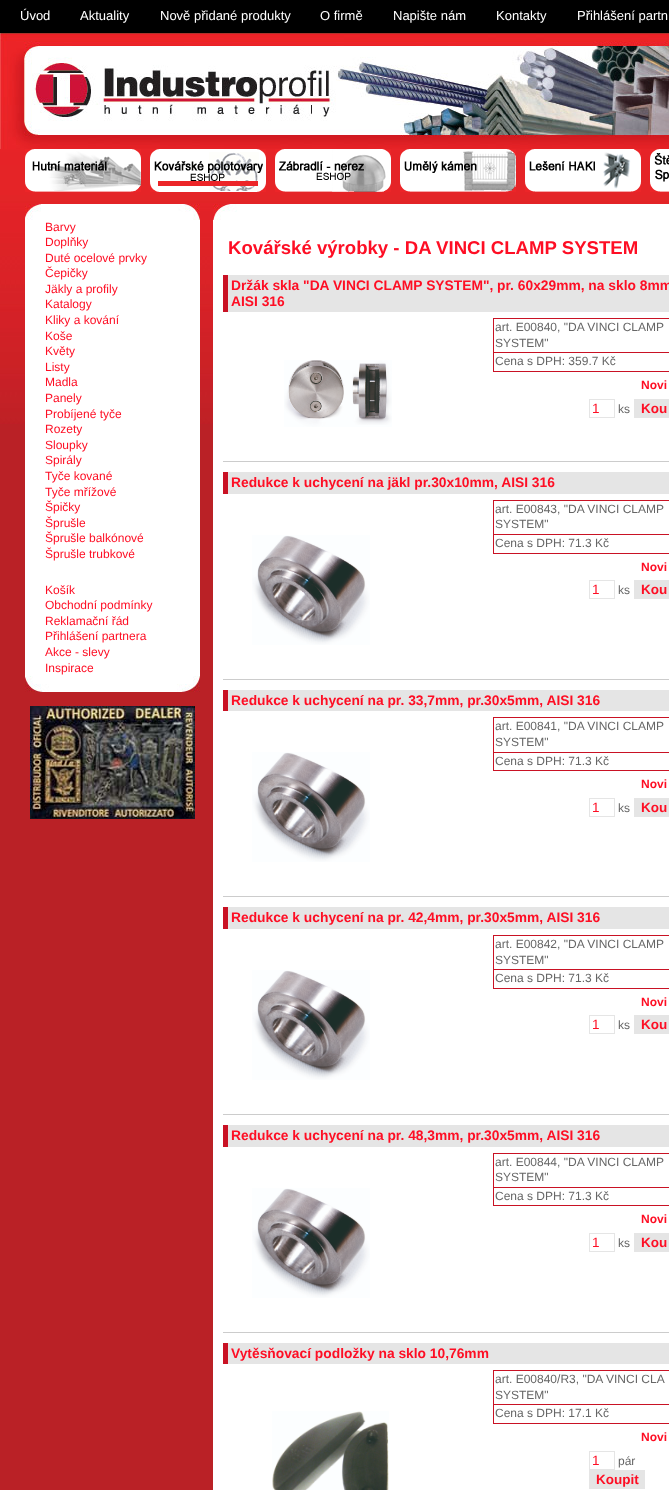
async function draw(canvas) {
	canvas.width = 669;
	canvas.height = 1490;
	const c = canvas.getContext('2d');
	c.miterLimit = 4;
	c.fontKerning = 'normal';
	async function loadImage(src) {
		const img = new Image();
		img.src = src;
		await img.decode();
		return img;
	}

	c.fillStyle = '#ba2126';
	c.fillRect(0, 0, 669, 1490);
	c.drawImage(await loadImage('img1.png'), 0, 149, 669, 275);
	c.fillStyle = '#000';
	c.fillRect(0, 0, 669, 33);
	c.font = '13px Liberation Sans';
	c.fillStyle = '#fff';
	for (const [text, x, y] of [
		['Úvod', 20, 20],
		['Aktuality', 80, 20],
		['Nově přidané produkty', 160, 20],
		['O firmě', 320, 20],
		['Napište nám', 393, 20],
		['Kontakty', 496, 20],
		['Přihlášení partn', 577, 20],
	]) {
		c.fillText(text, x, y);
	}
	c.drawImage(await loadImage('img2.png'), 0, 33, 669, 116);
	c.drawImage(await loadImage('img3.png'), 25, 149, 116, 43);
	c.drawImage(await loadImage('img4.png'), 150, 149, 116, 43);
	c.drawImage(await loadImage('img5.png'), 275, 149, 116, 43);
	c.drawImage(await loadImage('img6.png'), 400, 149, 116, 43);
	c.drawImage(await loadImage('img7.png'), 525, 149, 116, 43);
	c.drawImage(await loadImage('img8.png'), 650, 149, 19, 43);
	c.fillRect(25, 220, 175, 456);
	c.drawImage(await loadImage('img9.png'), 25, 204, 175, 16);
	c.font = '12px Liberation Sans';
	c.fillStyle = '#fe0e24';
	for (const [text, x, y] of [
		['Barvy', 45, 231],
		['Doplňky', 45, 246],
		['Duté ocelové prvky', 45, 262],
		['Čepičky', 45, 277],
		['Jäkly a profily', 45, 293],
		['Katalogy', 45, 308],
		['Kliky a kování', 45, 324],
		['Koše', 45, 340],
		['Květy', 45, 355],
		['Listy', 45, 371],
		['Madla', 45, 386],
		['Panely', 45, 402],
		['Probíjené tyče', 45, 418],
		['Rozety', 45, 433],
		['Sloupky', 45, 449],
		['Spirály', 45, 464],
		['Tyče kované', 45, 480],
		['Tyče mřížové', 45, 496],
		['Špičky', 45, 511],
		['Šprušle', 45, 527],
		['Šprušle balkónové', 45, 542],
		['Šprušle trubkové', 45, 558],
		['Košík', 45, 594],
		['Obchodní podmínky', 45, 609],
		['Reklamační řád', 45, 625],
		['Přihlášení partnera', 45, 640],
		['Akce - slevy', 45, 656],
		['Inspirace', 45, 672],
	]) {
		c.fillText(text, x, y);
	}
	c.drawImage(await loadImage('img10.png'), 25, 676, 175, 16);
	c.drawImage(await loadImage('img11.png'), 30, 706, 165, 113);
	c.fillStyle = '#fff';
	c.fillRect(213, 204, 456, 1286);
	c.drawImage(await loadImage('img12.png'), 213, 204, 24, 16);
	c.font = 'bold 18.6px Liberation Sans';
	c.fillStyle = '#fe0e24';
	c.fillText('Kovářské výrobky - DA VINCI CLAMP SYSTEM', 228, 254);
	for (const [x, y, w, h, color] of [
		[223, 461, 446, 1, '#ccc'],
		[228, 275, 441, 37, '#e5e5e5'],
		[223, 275, 5, 37, '#c91224'],
	]) {
		c.fillStyle = color;
		c.fillRect(x, y, w, h);
	}
	c.font = 'bold 13.8px Liberation Sans';
	c.fillStyle = '#fe0e24';
	c.fillText('Držák skla "DA VINCI CLAMP SYSTEM", pr. 60x29mm, na sklo 8mm', 231, 290);
	c.fillText('AISI 316', 231, 306);
	for (const [x, y, w, h, color] of [
		[493, 318, 176, 1, '#c91224'],
		[493, 352, 176, 1, '#c91224'],
		[493, 371, 176, 1, '#c91224'],
		[493, 352, 1, 20, '#c91224'],
		[493, 318, 1, 35, '#c91224'],
	]) {
		c.fillStyle = color;
		c.fillRect(x, y, w, h);
	}
	c.font = '12px Liberation Sans';
	c.fillStyle = '#666';
	for (const [text, x, y] of [
		['art. E00840, "DA VINCI CLAMP', 495, 331],
		['SYSTEM"', 495, 347],
		['Cena s DPH: 359.7 Kč', 495, 365],
	]) {
		c.fillText(text, x, y);
	}
	c.drawImage(await loadImage('img13.png'), 284, 360, 108, 67);
	c.font = 'bold 12px Liberation Sans';
	c.fillStyle = '#fe0e24';
	c.fillText('Novi', 641, 389);
	c.strokeStyle = '#e5e5e5';
	c.strokeRect(589.5, 399.5, 25, 18);
	c.font = '13.5px Liberation Sans';
	c.fillText('1', 592, 413);
	c.font = '12px Liberation Sans';
	c.fillStyle = '#666';
	c.fillText('ks', 618, 413);
	c.fillStyle = '#e5e5e5';
	c.fillRect(634, 399, 35, 19);
	c.font = 'bold 13.5px Liberation Sans';
	c.fillStyle = '#fe0e24';
	c.fillText('Kou', 641, 413);
	for (const [x, y, w, h, color] of [
		[223, 679, 446, 1, '#ccc'],
		[228, 472, 441, 22, '#e5e5e5'],
		[223, 472, 5, 22, '#c91224'],
	]) {
		c.fillStyle = color;
		c.fillRect(x, y, w, h);
	}
	c.font = 'bold 13.8px Liberation Sans';
	c.fillStyle = '#fe0e24';
	c.fillText('Redukce k uchycení na jäkl pr.30x10mm, AISI 316', 231, 487);
	for (const [x, y, w, h, color] of [
		[493, 500, 176, 1, '#c91224'],
		[493, 534, 176, 1, '#c91224'],
		[493, 553, 176, 1, '#c91224'],
		[493, 534, 1, 20, '#c91224'],
		[493, 500, 1, 35, '#c91224'],
	]) {
		c.fillStyle = color;
		c.fillRect(x, y, w, h);
	}
	c.font = '12px Liberation Sans';
	c.fillStyle = '#666';
	for (const [text, x, y] of [
		['art. E00843, "DA VINCI CLAMP', 495, 513],
		['SYSTEM"', 495, 528],
		['Cena s DPH: 71.3 Kč', 495, 547],
	]) {
		c.fillText(text, x, y);
	}
	c.drawImage(await loadImage('img14.png'), 252, 535, 118, 110);
	c.font = 'bold 12px Liberation Sans';
	c.fillStyle = '#fe0e24';
	c.fillText('Novi', 641, 571);
	c.strokeRect(589.5, 580.5, 25, 18);
	c.font = '13.5px Liberation Sans';
	c.fillText('1', 592, 594);
	c.font = '12px Liberation Sans';
	c.fillStyle = '#666';
	c.fillText('ks', 618, 594);
	c.fillStyle = '#e5e5e5';
	c.fillRect(634, 580, 35, 19);
	c.font = 'bold 13.5px Liberation Sans';
	c.fillStyle = '#fe0e24';
	c.fillText('Kou', 641, 594);
	for (const [x, y, w, h, color] of [
		[223, 896, 446, 1, '#ccc'],
		[228, 690, 441, 21, '#e5e5e5'],
		[223, 690, 5, 21, '#c91224'],
	]) {
		c.fillStyle = color;
		c.fillRect(x, y, w, h);
	}
	c.font = 'bold 13.8px Liberation Sans';
	c.fillStyle = '#fe0e24';
	c.fillText('Redukce k uchycení na pr. 33,7mm, pr.30x5mm, AISI 316', 231, 705);
	for (const [x, y, w, h, color] of [
		[493, 717, 176, 1, '#c91224'],
		[493, 752, 176, 1, '#c91224'],
		[493, 770, 176, 1, '#c91224'],
		[493, 752, 1, 19, '#c91224'],
		[493, 717, 1, 36, '#c91224'],
	]) {
		c.fillStyle = color;
		c.fillRect(x, y, w, h);
	}
	c.font = '12px Liberation Sans';
	c.fillStyle = '#666';
	for (const [text, x, y] of [
		['art. E00841, "DA VINCI CLAMP', 495, 730],
		['SYSTEM"', 495, 746],
		['Cena s DPH: 71.3 Kč', 495, 765],
	]) {
		c.fillText(text, x, y);
	}
	c.drawImage(await loadImage('img15.png'), 252, 752, 118, 110);
	c.font = 'bold 12px Liberation Sans';
	c.fillStyle = '#fe0e24';
	c.fillText('Novi', 641, 788);
	c.strokeRect(589.5, 798.5, 25, 18);
	c.font = '13.5px Liberation Sans';
	c.fillText('1', 592, 812);
	c.font = '12px Liberation Sans';
	c.fillStyle = '#666';
	c.fillText('ks', 618, 812);
	c.fillStyle = '#e5e5e5';
	c.fillRect(634, 798, 35, 19);
	c.font = 'bold 13.5px Liberation Sans';
	c.fillStyle = '#fe0e24';
	c.fillText('Kou', 641, 812);
	for (const [x, y, w, h, color] of [
		[223, 1114, 446, 1, '#ccc'],
		[228, 907, 441, 22, '#e5e5e5'],
		[223, 907, 5, 22, '#c91224'],
	]) {
		c.fillStyle = color;
		c.fillRect(x, y, w, h);
	}
	c.font = 'bold 13.8px Liberation Sans';
	c.fillStyle = '#fe0e24';
	c.fillText('Redukce k uchycení na pr. 42,4mm, pr.30x5mm, AISI 316', 231, 922);
	for (const [x, y, w, h, color] of [
		[493, 935, 176, 1, '#c91224'],
		[493, 969, 176, 1, '#c91224'],
		[493, 988, 176, 1, '#c91224'],
		[493, 969, 1, 20, '#c91224'],
		[493, 935, 1, 35, '#c91224'],
	]) {
		c.fillStyle = color;
		c.fillRect(x, y, w, h);
	}
	c.font = '12px Liberation Sans';
	c.fillStyle = '#666';
	for (const [text, x, y] of [
		['art. E00842, "DA VINCI CLAMP', 495, 948],
		['SYSTEM"', 495, 964],
		['Cena s DPH: 71.3 Kč', 495, 982],
	]) {
		c.fillText(text, x, y);
	}
	c.drawImage(await loadImage('img16.png'), 252, 970, 118, 110);
	c.font = 'bold 12px Liberation Sans';
	c.fillStyle = '#fe0e24';
	c.fillText('Novi', 641, 1006);
	c.strokeRect(589.5, 1015.5, 25, 18);
	c.font = '13.5px Liberation Sans';
	c.fillText('1', 592, 1029);
	c.font = '12px Liberation Sans';
	c.fillStyle = '#666';
	c.fillText('ks', 618, 1029);
	c.fillStyle = '#e5e5e5';
	c.fillRect(634, 1015, 35, 19);
	c.font = 'bold 13.5px Liberation Sans';
	c.fillStyle = '#fe0e24';
	c.fillText('Kou', 641, 1029);
	for (const [x, y, w, h, color] of [
		[223, 1332, 446, 1, '#ccc'],
		[228, 1125, 441, 22, '#e5e5e5'],
		[223, 1125, 5, 22, '#c91224'],
	]) {
		c.fillStyle = color;
		c.fillRect(x, y, w, h);
	}
	c.font = 'bold 13.8px Liberation Sans';
	c.fillStyle = '#fe0e24';
	c.fillText('Redukce k uchycení na pr. 48,3mm, pr.30x5mm, AISI 316', 231, 1140);
	for (const [x, y, w, h, color] of [
		[493, 1153, 176, 1, '#c91224'],
		[493, 1187, 176, 1, '#c91224'],
		[493, 1205, 176, 1, '#c91224'],
		[493, 1187, 1, 19, '#c91224'],
		[493, 1153, 1, 35, '#c91224'],
	]) {
		c.fillStyle = color;
		c.fillRect(x, y, w, h);
	}
	c.font = '12px Liberation Sans';
	c.fillStyle = '#666';
	for (const [text, x, y] of [
		['art. E00844, "DA VINCI CLAMP', 495, 1166],
		['SYSTEM"', 495, 1181],
		['Cena s DPH: 71.3 Kč', 495, 1200],
	]) {
		c.fillText(text, x, y);
	}
	c.drawImage(await loadImage('img15.png'), 252, 1188, 118, 110);
	c.font = 'bold 12px Liberation Sans';
	c.fillStyle = '#fe0e24';
	c.fillText('Novi', 641, 1223);
	c.strokeRect(589.5, 1233.5, 25, 18);
	c.font = '13.5px Liberation Sans';
	c.fillText('1', 592, 1247);
	c.font = '12px Liberation Sans';
	c.fillStyle = '#666';
	c.fillText('ks', 618, 1247);
	c.fillStyle = '#e5e5e5';
	c.fillRect(634, 1233, 35, 19);
	c.font = 'bold 13.5px Liberation Sans';
	c.fillStyle = '#fe0e24';
	c.fillText('Kou', 641, 1247);
	c.fillStyle = '#e5e5e5';
	c.fillRect(228, 1343, 441, 21);
	c.fillStyle = '#c91224';
	c.fillRect(223, 1343, 5, 21);
	c.font = 'bold 13.8px Liberation Sans';
	c.fillStyle = '#fe0e24';
	c.fillText('Vytěsňovací podložky na sklo 10,76mm', 231, 1358);
	for (const [x, y, w, h, color] of [
		[493, 1370, 176, 1, '#c91224'],
		[493, 1404, 176, 1, '#c91224'],
		[493, 1423, 176, 1, '#c91224'],
		[493, 1404, 1, 20, '#c91224'],
		[493, 1370, 1, 35, '#c91224'],
	]) {
		c.fillStyle = color;
		c.fillRect(x, y, w, h);
	}
	c.font = '12px Liberation Sans';
	c.fillStyle = '#666';
	for (const [text, x, y] of [
		['art. E00840/R3, "DA VINCI CLA', 495, 1383],
		['SYSTEM"', 495, 1399],
		['Cena s DPH: 17.1 Kč', 495, 1417],
	]) {
		c.fillText(text, x, y);
	}
	c.drawImage(await loadImage('img17.png'), 272, 1411, 117, 79);
	c.font = 'bold 12px Liberation Sans';
	c.fillStyle = '#fe0e24';
	c.fillText('Novi', 641, 1441);
	c.strokeRect(589.5, 1451.5, 25, 18);
	c.font = '13.5px Liberation Sans';
	c.fillText('1', 592, 1465);
	c.font = '12px Liberation Sans';
	c.fillStyle = '#666';
	c.fillText('pár', 618, 1465);
	c.fillStyle = '#e5e5e5';
	c.fillRect(589, 1470, 56, 19);
	c.font = 'bold 13.5px Liberation Sans';
	c.fillStyle = '#fe0e24';
	c.fillText('Koupit', 596, 1484);
}

draw(document.querySelector('canvas'));
